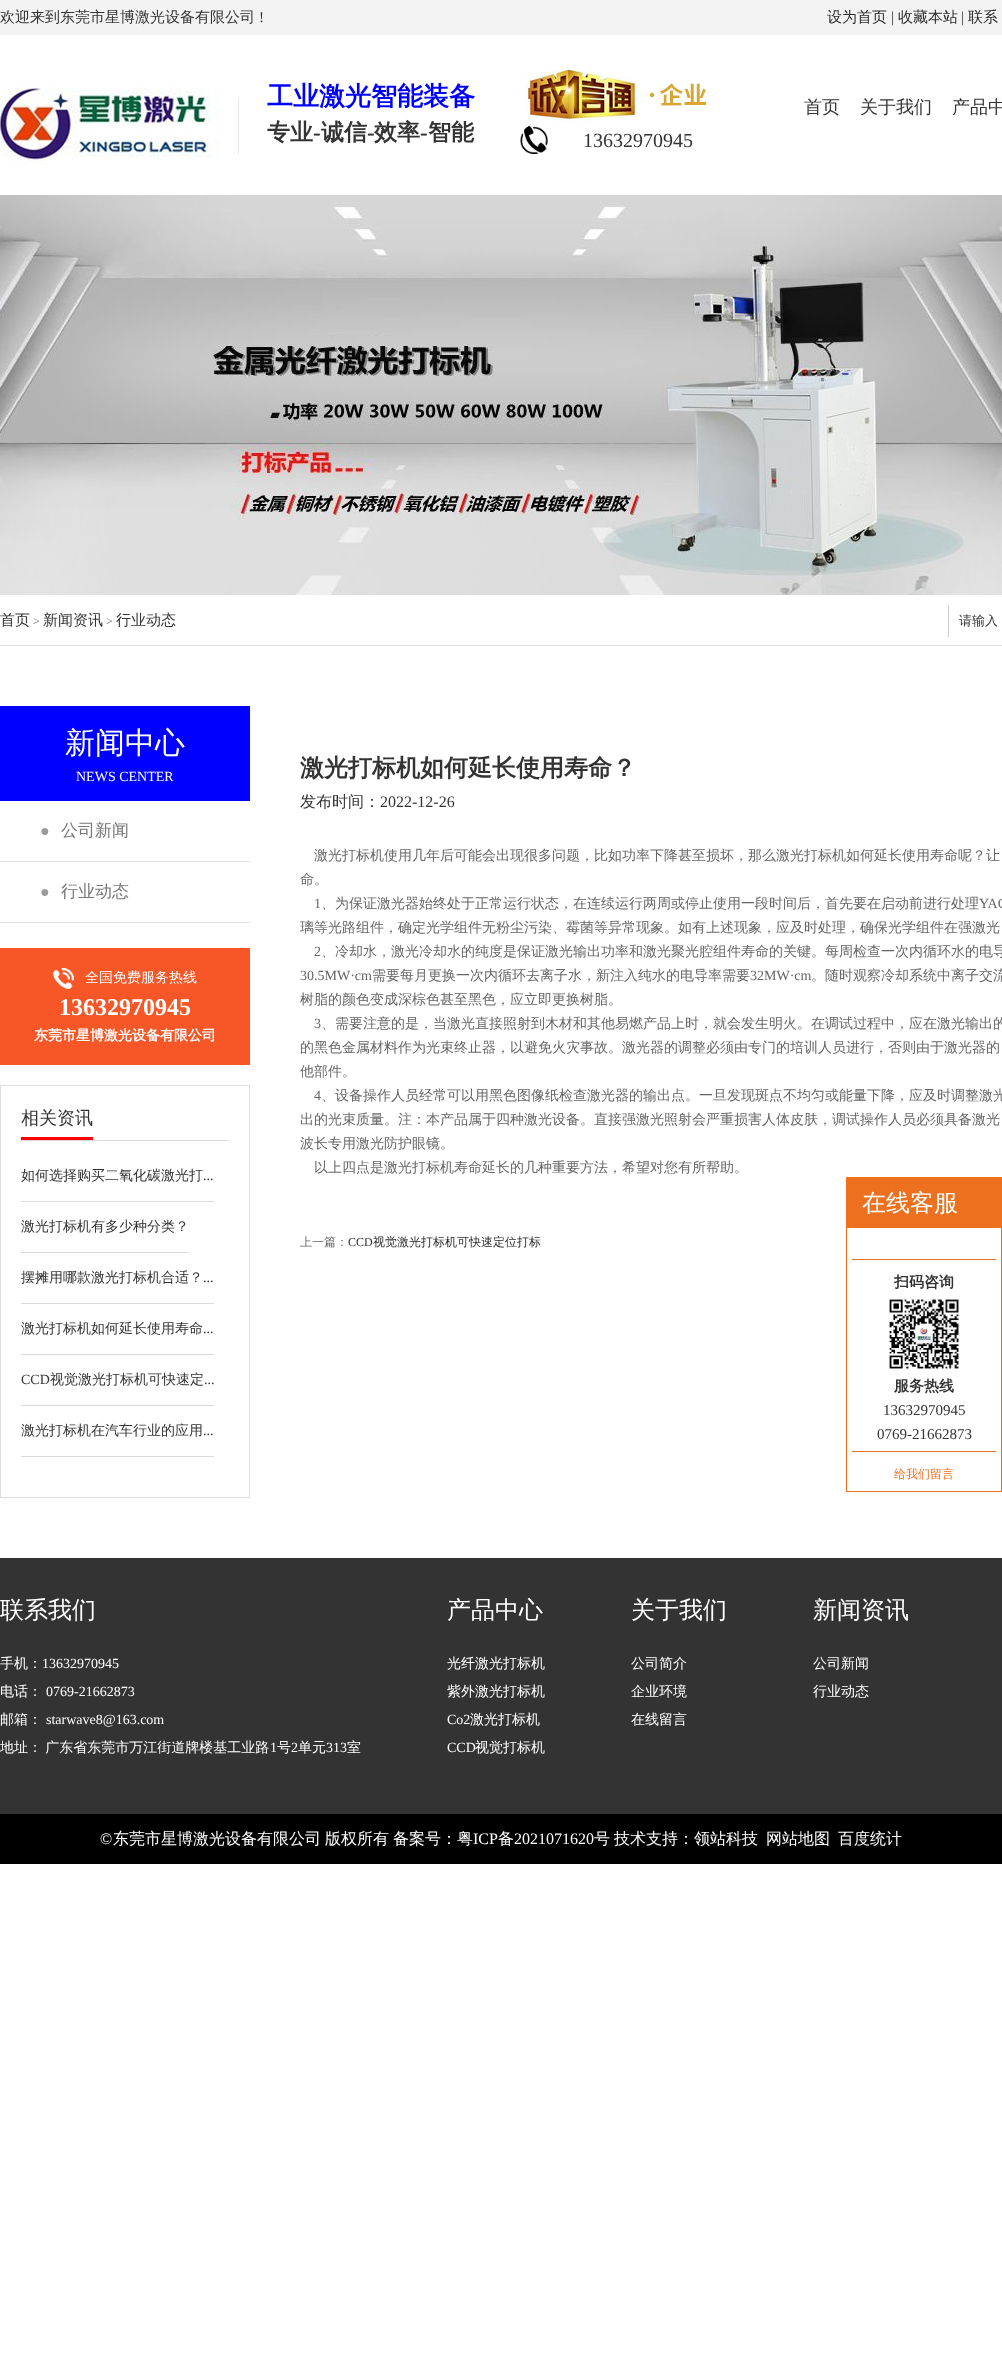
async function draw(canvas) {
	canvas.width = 1002;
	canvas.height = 2353;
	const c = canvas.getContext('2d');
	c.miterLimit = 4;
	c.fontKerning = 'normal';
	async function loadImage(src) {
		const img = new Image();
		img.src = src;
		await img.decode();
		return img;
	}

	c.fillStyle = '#fff';
	c.fillRect(0, 0, 1002, 2353);
	c.fillStyle = '#f3f3f3';
	c.fillRect(0, 0, 1002, 35);
	c.font = '500 15px WenQuanYi Zen Hei';
	c.fillStyle = '#333';
	c.fillText('欢迎来到东莞市星博激光设备有限公司', 0, 22);
	c.font = '15px Liberation Serif';
	c.fillText('!', 259, 22);
	c.font = '500 15px WenQuanYi Zen Hei';
	c.fillStyle = '#2c2c2c';
	c.fillText('设为首页', 827, 22);
	c.font = '15px Liberation Serif';
	c.fillStyle = '#333';
	c.fillText('|', 891, 22);
	c.font = '500 15px WenQuanYi Zen Hei';
	c.fillStyle = '#2c2c2c';
	c.fillText('收藏本站', 898, 22);
	c.font = '15px Liberation Serif';
	c.fillStyle = '#333';
	c.fillText('|', 961, 22);
	c.font = '500 15px WenQuanYi Zen Hei';
	c.fillStyle = '#2c2c2c';
	c.fillText('联系', 968, 22);
	c.drawImage(await loadImage('img1.png'), 0, 85, 239, 80);
	c.font = 'bold 26px WenQuanYi Zen Hei';
	c.fillStyle = '#00f';
	c.fillText('工业激光智能装备', 267, 105);
	c.font = 'bold 23px WenQuanYi Zen Hei';
	c.fillStyle = '#333';
	c.fillText('专业', 267, 140);
	c.font = 'bold 23px Liberation Serif';
	c.fillText('-', 313, 140);
	c.font = 'bold 23px WenQuanYi Zen Hei';
	c.fillText('诚信', 321, 140);
	c.font = 'bold 23px Liberation Serif';
	c.fillText('-', 367, 140);
	c.font = 'bold 23px WenQuanYi Zen Hei';
	c.fillText('效率', 374, 140);
	c.font = 'bold 23px Liberation Serif';
	c.fillText('-', 420, 140);
	c.font = 'bold 23px WenQuanYi Zen Hei';
	c.fillText('智能', 428, 140);
	c.font = '500 18px WenQuanYi Zen Hei';
	for (const [text, x, y] of [
		['首页', 804, 113],
		['关于我们', 860, 113],
		['产品中', 952, 113],
	]) {
		c.fillText(text, x, y);
	}
	c.drawImage(await loadImage('img2.png'), 524, 65, 182, 56);
	c.drawImage(await loadImage('img3.png'), 520, 126, 28, 28);
	c.font = '20px Liberation Serif';
	c.fillText('13632970945', 583, 147);
	c.drawImage(await loadImage('img4.png'), 0, 195, 1002, 400);
	c.font = '500 15px WenQuanYi Zen Hei';
	c.fillText('首页', 0, 625);
	c.font = '12px Liberation Serif';
	c.fillStyle = '#666';
	c.fillText('>', 33, 625);
	c.font = '500 15px WenQuanYi Zen Hei';
	c.fillStyle = '#333';
	c.fillText('新闻资讯', 43, 625);
	c.font = '12px Liberation Serif';
	c.fillStyle = '#666';
	c.fillText('>', 106, 625);
	c.font = '500 15px WenQuanYi Zen Hei';
	c.fillStyle = '#333';
	c.fillText('行业动态', 116, 625);
	c.fillStyle = '#cdcdcd';
	c.fillRect(948, 605, 1, 32);
	c.font = '500 13px WenQuanYi Zen Hei';
	c.fillStyle = '#333';
	c.fillText('请输入', 959, 625);
	c.fillStyle = '#e0e0e0';
	c.fillRect(0, 645, 1002, 1);
	c.fillStyle = '#00f';
	c.fillRect(0, 706, 250, 95);
	c.font = '500 30px WenQuanYi Zen Hei';
	c.fillStyle = '#fff';
	c.fillText('新闻中心', 65, 753);
	c.font = '14px Liberation Serif';
	c.fillText('NEWS CENTER', 76, 781);
	c.fillStyle = '#ddd';
	c.fillRect(0, 861, 250, 1);
	c.font = '16px Liberation Serif';
	c.fillStyle = '#999';
	c.fillText('●', 40, 836);
	c.font = '500 17px WenQuanYi Zen Hei';
	c.fillStyle = '#777';
	c.fillText('公司新闻', 61, 836);
	c.fillStyle = '#ddd';
	c.fillRect(0, 922, 250, 1);
	c.font = '16px Liberation Serif';
	c.fillStyle = '#999';
	c.fillText('●', 40, 897);
	c.font = '500 17px WenQuanYi Zen Hei';
	c.fillStyle = '#777';
	c.fillText('行业动态', 61, 897);
	c.fillStyle = '#f75626';
	c.fillRect(0, 948, 250, 117);
	c.drawImage(await loadImage('img5.png'), 53, 968, 21, 21);
	c.font = '500 14px WenQuanYi Zen Hei';
	c.fillStyle = '#fff';
	c.fillText('全国免费服务热线', 85, 982);
	c.font = 'bold 24px Liberation Serif';
	c.fillText('13632970945', 59, 1015);
	c.font = 'bold 14px WenQuanYi Zen Hei';
	c.fillText('东莞市星博激光设备有限公司', 34, 1040);
	c.strokeStyle = '#ddd';
	c.strokeRect(0.5, 1085.5, 249, 412);
	c.fillStyle = '#dadada';
	c.fillRect(21, 1140, 208, 1);
	c.font = '500 18px WenQuanYi Zen Hei';
	c.fillStyle = '#333';
	c.fillText('相关资讯', 21, 1124);
	c.fillStyle = '#f00';
	c.fillRect(21, 1137, 72, 3);
	c.fillStyle = '#dadada';
	c.fillRect(21, 1201, 193, 1);
	c.font = '500 14px WenQuanYi Zen Hei';
	c.fillStyle = '#333';
	c.fillText('如何选择购买二氧化碳激光打', 21, 1180);
	c.font = '14px Liberation Serif';
	c.fillText('...', 203, 1180);
	c.fillStyle = '#dadada';
	c.fillRect(21, 1252, 168, 1);
	c.font = '500 14px WenQuanYi Zen Hei';
	c.fillStyle = '#333';
	c.fillText('激光打标机有多少种分类？', 21, 1231);
	c.fillStyle = '#dadada';
	c.fillRect(21, 1303, 193, 1);
	c.fillStyle = '#333';
	c.fillText('摆摊用哪款激光打标机合适？', 21, 1282);
	c.font = '14px Liberation Serif';
	c.fillText('...', 203, 1282);
	c.fillStyle = '#dadada';
	c.fillRect(21, 1354, 193, 1);
	c.font = '500 14px WenQuanYi Zen Hei';
	c.fillStyle = '#333';
	c.fillText('激光打标机如何延长使用寿命', 21, 1333);
	c.font = '14px Liberation Serif';
	c.fillText('...', 203, 1333);
	c.fillStyle = '#dadada';
	c.fillRect(21, 1405, 193, 1);
	c.fillStyle = '#333';
	c.fillText('CCD', 21, 1384);
	c.font = '500 14px WenQuanYi Zen Hei';
	c.fillText('视觉激光打标机可快速定', 50, 1384);
	c.font = '14px Liberation Serif';
	c.fillText('...', 204, 1384);
	c.fillStyle = '#dadada';
	c.fillRect(21, 1456, 193, 1);
	c.font = '500 14px WenQuanYi Zen Hei';
	c.fillStyle = '#333';
	c.fillText('激光打标机在汽车行业的应用', 21, 1435);
	c.font = '14px Liberation Serif';
	c.fillText('...', 203, 1435);
	c.font = 'bold 24px WenQuanYi Zen Hei';
	c.fillText('激光打标机如何延长使用寿命？', 300, 776);
	c.font = '500 16px WenQuanYi Zen Hei';
	c.fillText('发布时间：', 300, 807);
	c.font = '16px Liberation Serif';
	c.fillText('2022-12-26', 380, 807);
	c.font = '500 14px WenQuanYi Zen Hei';
	c.fillStyle = '#666';
	c.fillText('激光打标机使用几年后可能会出现很多问题，比如功率下降甚至损坏，那么激光打标机如何延长使用寿命呢？让', 314, 860);
	c.fillText('命。', 300, 884);
	c.font = '14px Liberation Serif';
	c.fillText('1', 314, 908);
	c.font = '500 14px WenQuanYi Zen Hei';
	c.fillText('、为保证激光器始终处于正常运行状态，在连续运行两周或停止使用一段时间后，首先要在启动前进行处理', 321, 908);
	c.font = '14px Liberation Serif';
	c.fillText('YAG', 979, 908);
	c.font = '500 14px WenQuanYi Zen Hei';
	c.fillText('璃等光路组件，确定光学组件无粉尘污染、霉菌等异常现象。如有上述现象，应及时处理，确保光学组件在强激光', 300, 932);
	c.font = '14px Liberation Serif';
	c.fillText('2', 314, 956);
	c.font = '500 14px WenQuanYi Zen Hei';
	c.fillText('、冷却水，激光冷却水的纯度是保证激光输出功率和激光聚光腔组件寿命的关键。每周检查一次内循环水的电导', 321, 956);
	c.font = '14px Liberation Serif';
	c.fillText('30.5MW·cm', 300, 980);
	c.font = '500 14px WenQuanYi Zen Hei';
	c.fillText('需要每月更换一次内循环去离子水，新注入纯水的电导率需要', 372, 980);
	c.font = '14px Liberation Serif';
	c.fillText('32MW·cm', 750, 980);
	c.font = '500 14px WenQuanYi Zen Hei';
	c.fillText('。随时观察冷却系统中离子交流', 811, 980);
	c.fillText('树脂的颜色变成深棕色甚至黑色，应立即更换树脂。', 300, 1004);
	c.font = '14px Liberation Serif';
	c.fillText('3', 314, 1028);
	c.font = '500 14px WenQuanYi Zen Hei';
	for (const [text, x, y] of [
		['、需要注意的是，当激光直接照射到木材和其他易燃产品上时，就会发生明火。在调试过程中，应在激光输出的', 321, 1028],
		['的黑色金属材料作为光束终止器，以避免火灾事故。激光器的调整必须由专门的培训人员进行，否则由于激光器的', 300, 1052],
		['他部件。', 300, 1076],
	]) {
		c.fillText(text, x, y);
	}
	c.font = '14px Liberation Serif';
	c.fillText('4', 314, 1100);
	c.font = '500 14px WenQuanYi Zen Hei';
	for (const [text, x, y] of [
		['、设备操作人员经常可以用黑色图像纸检查激光器的输出点。一旦发现斑点不均匀或能量下降，应及时调整激光', 321, 1100],
		['出的光束质量。注：本产品属于四种激光设备。直接强激光照射会严重损害人体皮肤，调试操作人员必须具备激光', 300, 1124],
		['波长专用激光防护眼镜。', 300, 1148],
		['以上四点是激光打标机寿命延长的几种重要方法，希望对您有所帮助。', 314, 1172],
	]) {
		c.fillText(text, x, y);
	}
	c.font = '500 12px WenQuanYi Zen Hei';
	c.fillText('上一篇：', 300, 1246);
	c.font = '12px Liberation Serif';
	c.fillStyle = '#2c2c2c';
	c.fillText('CCD', 348, 1246);
	c.font = '500 12px WenQuanYi Zen Hei';
	c.fillText('视觉激光打标机可快速定位打标', 373, 1246);
	c.strokeStyle = '#ed701e';
	c.strokeRect(846.5, 1177.5, 155, 314);
	c.fillStyle = '#ed701e';
	c.fillRect(847, 1178, 154, 50);
	c.font = '500 24px WenQuanYi Zen Hei';
	c.fillStyle = '#fff';
	c.fillText('在线客服', 862, 1211);
	c.fillStyle = '#ed701e';
	c.fillRect(852, 1259, 144, 1);
	c.fillRect(852, 1451, 144, 1);
	c.font = 'bold 15px WenQuanYi Zen Hei';
	c.fillStyle = '#333';
	c.fillText('扫码咨询', 894, 1287);
	c.drawImage(await loadImage('img6.png'), 889, 1299, 70, 70);
	c.fillText('服务热线', 894, 1391);
	c.font = '15px Liberation Serif';
	c.fillText('13632970945', 883, 1415);
	c.fillText('0769-21662873', 877, 1439);
	c.font = '500 12px WenQuanYi Zen Hei';
	c.fillStyle = '#ed701e';
	c.fillText('给我们留言', 894, 1478);
	c.fillStyle = '#333';
	c.fillRect(0, 1558, 1002, 256);
	c.font = '500 24px WenQuanYi Zen Hei';
	c.fillStyle = '#fff';
	c.fillText('联系我们', 0, 1618);
	c.font = '500 14px WenQuanYi Zen Hei';
	c.fillText('手机：', 0, 1668);
	c.font = '14px Liberation Serif';
	c.fillText('13632970945', 42, 1668);
	c.font = '500 14px WenQuanYi Zen Hei';
	c.fillText('电话：', 0, 1696);
	c.font = '14px Liberation Serif';
	c.fillText('0769-21662873', 46, 1696);
	c.font = '500 14px WenQuanYi Zen Hei';
	c.fillText('邮箱：', 0, 1724);
	c.font = '14px Liberation Serif';
	c.fillText('starwave8@163.com', 46, 1724);
	c.wordSpacing = '-1px';
	c.font = '500 14px WenQuanYi Zen Hei';
	c.fillText('地址： 广东省东莞市万江街道牌楼基工业路', 0, 1752);
	c.wordSpacing = '0px';
	c.font = '14px Liberation Serif';
	c.fillText('1', 270, 1752);
	c.font = '500 14px WenQuanYi Zen Hei';
	c.fillText('号', 277, 1752);
	c.font = '14px Liberation Serif';
	c.fillText('2', 291, 1752);
	c.font = '500 14px WenQuanYi Zen Hei';
	c.fillText('单元', 298, 1752);
	c.font = '14px Liberation Serif';
	c.fillText('313', 326, 1752);
	c.font = '500 14px WenQuanYi Zen Hei';
	c.fillText('室', 347, 1752);
	c.font = '500 24px WenQuanYi Zen Hei';
	c.fillText('产品中心', 447, 1618);
	c.font = '500 14px WenQuanYi Zen Hei';
	c.fillText('光纤激光打标机', 447, 1668);
	c.fillText('紫外激光打标机', 447, 1696);
	c.font = '14px Liberation Serif';
	c.fillText('Co2', 447, 1724);
	c.font = '500 14px WenQuanYi Zen Hei';
	c.fillText('激光打标机', 470, 1724);
	c.font = '14px Liberation Serif';
	c.fillText('CCD', 447, 1752);
	c.font = '500 14px WenQuanYi Zen Hei';
	c.fillText('视觉打标机', 475, 1752);
	c.font = '500 24px WenQuanYi Zen Hei';
	c.fillText('关于我们', 631, 1618);
	c.font = '500 14px WenQuanYi Zen Hei';
	for (const [text, x, y] of [
		['公司简介', 631, 1668],
		['企业环境', 631, 1696],
		['在线留言', 631, 1724],
	]) {
		c.fillText(text, x, y);
	}
	c.font = '500 24px WenQuanYi Zen Hei';
	c.fillText('新闻资讯', 813, 1618);
	c.font = '500 14px WenQuanYi Zen Hei';
	c.fillText('公司新闻', 813, 1668);
	c.fillText('行业动态', 813, 1696);
	c.fillStyle = '#000';
	c.fillRect(0, 1814, 1002, 50);
	c.font = '16px Liberation Serif';
	c.fillStyle = '#fff';
	c.fillText('©', 100, 1844);
	c.font = '500 16px WenQuanYi Zen Hei';
	for (const [text, x, y] of [
		['东莞市星博激光设备有限公司', 113, 1844],
		['版权所有', 325, 1844],
		['备案号：粤', 393, 1844],
	]) {
		c.fillText(text, x, y);
	}
	c.font = '16px Liberation Serif';
	c.fillText('ICP', 473, 1844);
	c.font = '500 16px WenQuanYi Zen Hei';
	c.fillText('备', 498, 1844);
	c.font = '16px Liberation Serif';
	c.fillText('2021071620', 514, 1844);
	c.font = '500 16px WenQuanYi Zen Hei';
	for (const [text, x, y] of [
		['号', 594, 1844],
		['技术支持：领站科技', 614, 1844],
		['网站地图', 766, 1844],
		['百度统计', 838, 1844],
	]) {
		c.fillText(text, x, y);
	}
}

draw(document.querySelector('canvas'));
